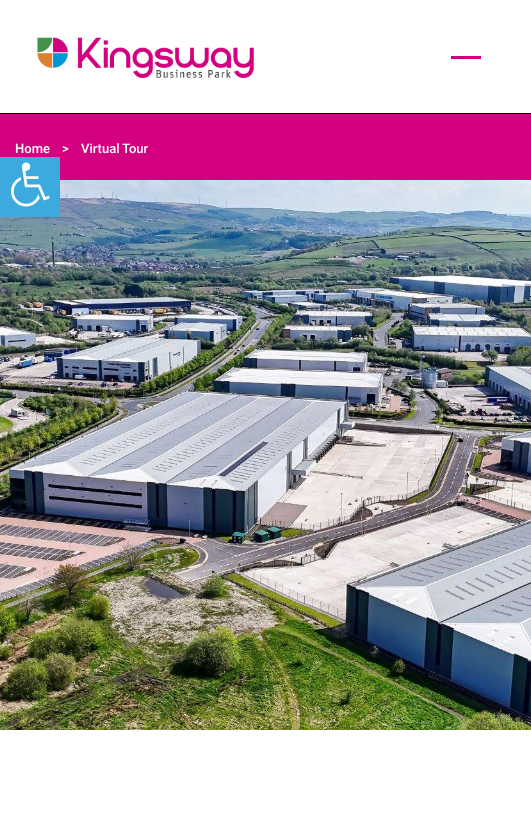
async function draw(canvas) {
	canvas.width = 531;
	canvas.height = 819;
	const c = canvas.getContext('2d');
	c.miterLimit = 4;
	c.fontKerning = 'normal';
	async function loadImage(src) {
		const img = new Image();
		img.src = src;
		await img.decode();
		return img;
	}

	c.fillStyle = '#fff';
	c.fillRect(0, 0, 531, 819);
	c.fillStyle = '#000';
	c.fillRect(0, 113, 531, 1);
	c.drawImage(await loadImage('img1.png'), 37, 37, 217, 41);
	c.fillStyle = '#d30080';
	c.fillRect(451, 56, 30, 3);
	c.fillRect(0, 114, 531, 66);
	c.font = '500 13px Roboto';
	c.fillStyle = '#fff';
	for (const [text, x, y] of [
		['Home', 15, 153],
		['>', 62, 153],
		['Virtual Tour', 81, 153],
	]) {
		c.fillText(text, x, y);
	}
	c.drawImage(await loadImage('img3.png'), 0, 180, 531, 550);
	c.fillStyle = '#3daadf';
	c.fillRect(0, 157, 60, 60);
	c.drawImage(await loadImage('img2.png'), 11, 162, 39, 45);
}

draw(document.querySelector('canvas'));
